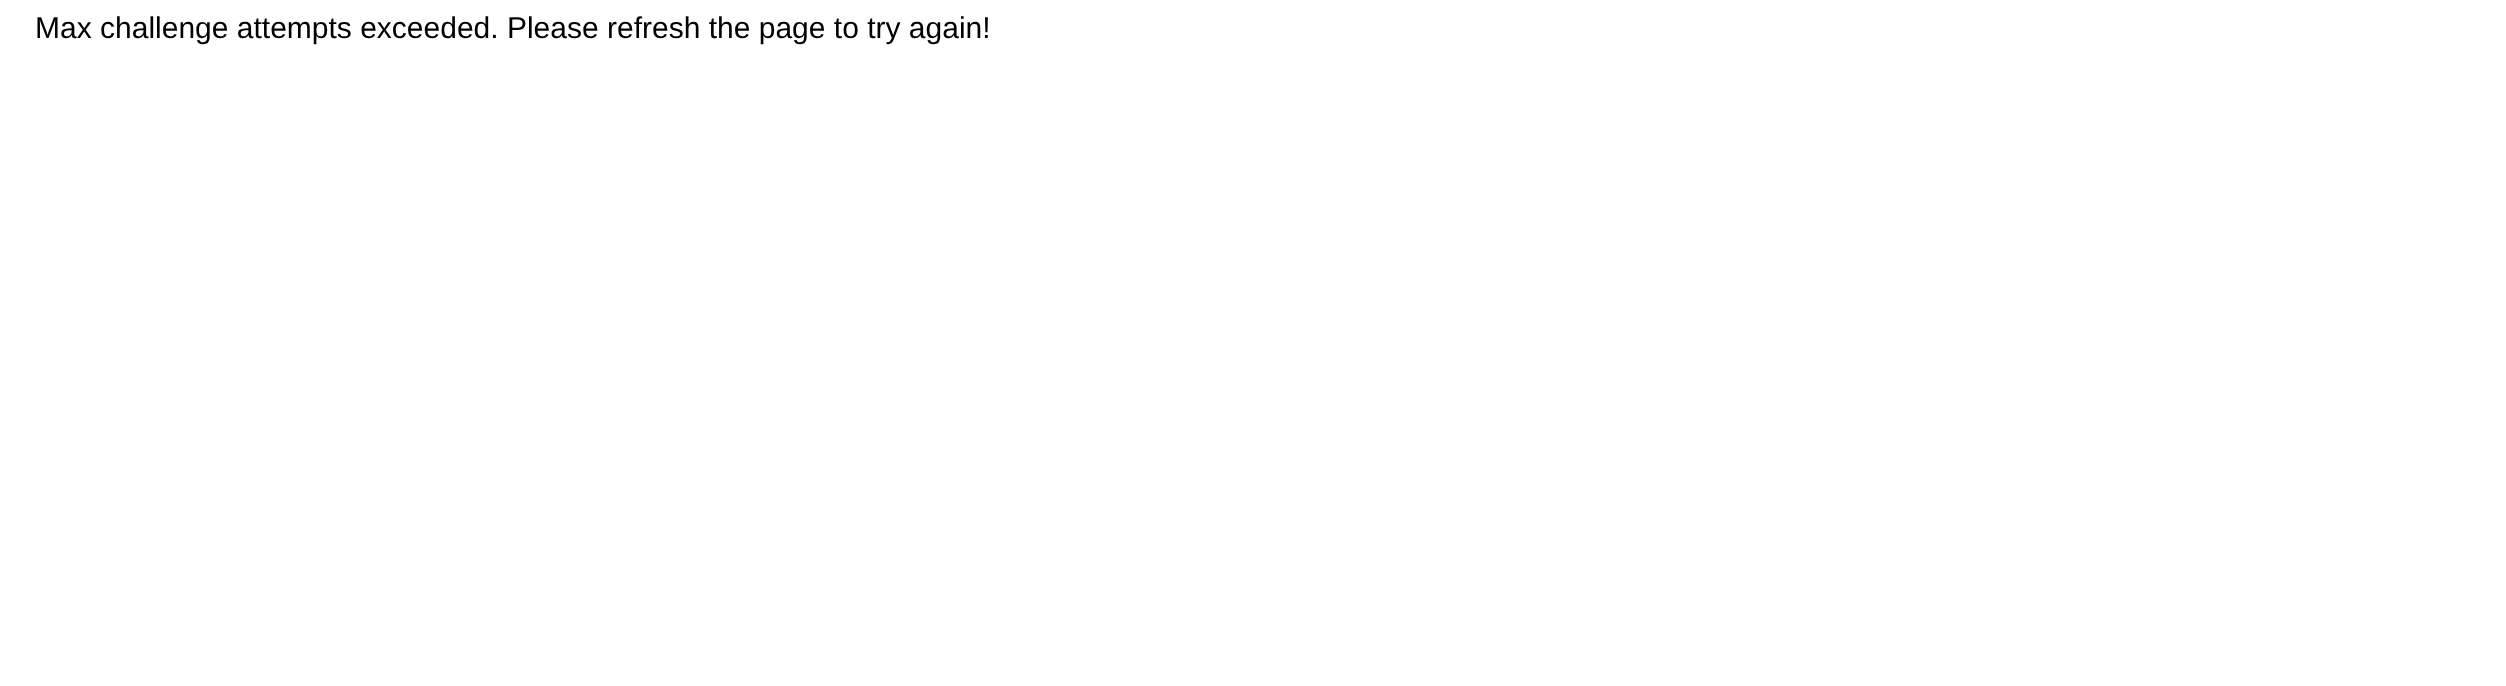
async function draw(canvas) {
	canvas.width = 2506;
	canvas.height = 686;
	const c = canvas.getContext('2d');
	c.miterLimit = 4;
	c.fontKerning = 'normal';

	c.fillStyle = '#fff';
	c.fillRect(0, 0, 2506, 686);
	c.font = '30px Liberation Sans';
	c.fillStyle = '#000';
	c.fillText('Max challenge attempts exceeded. Please refresh the page to try again!', 35, 38);
}

draw(document.querySelector('canvas'));
